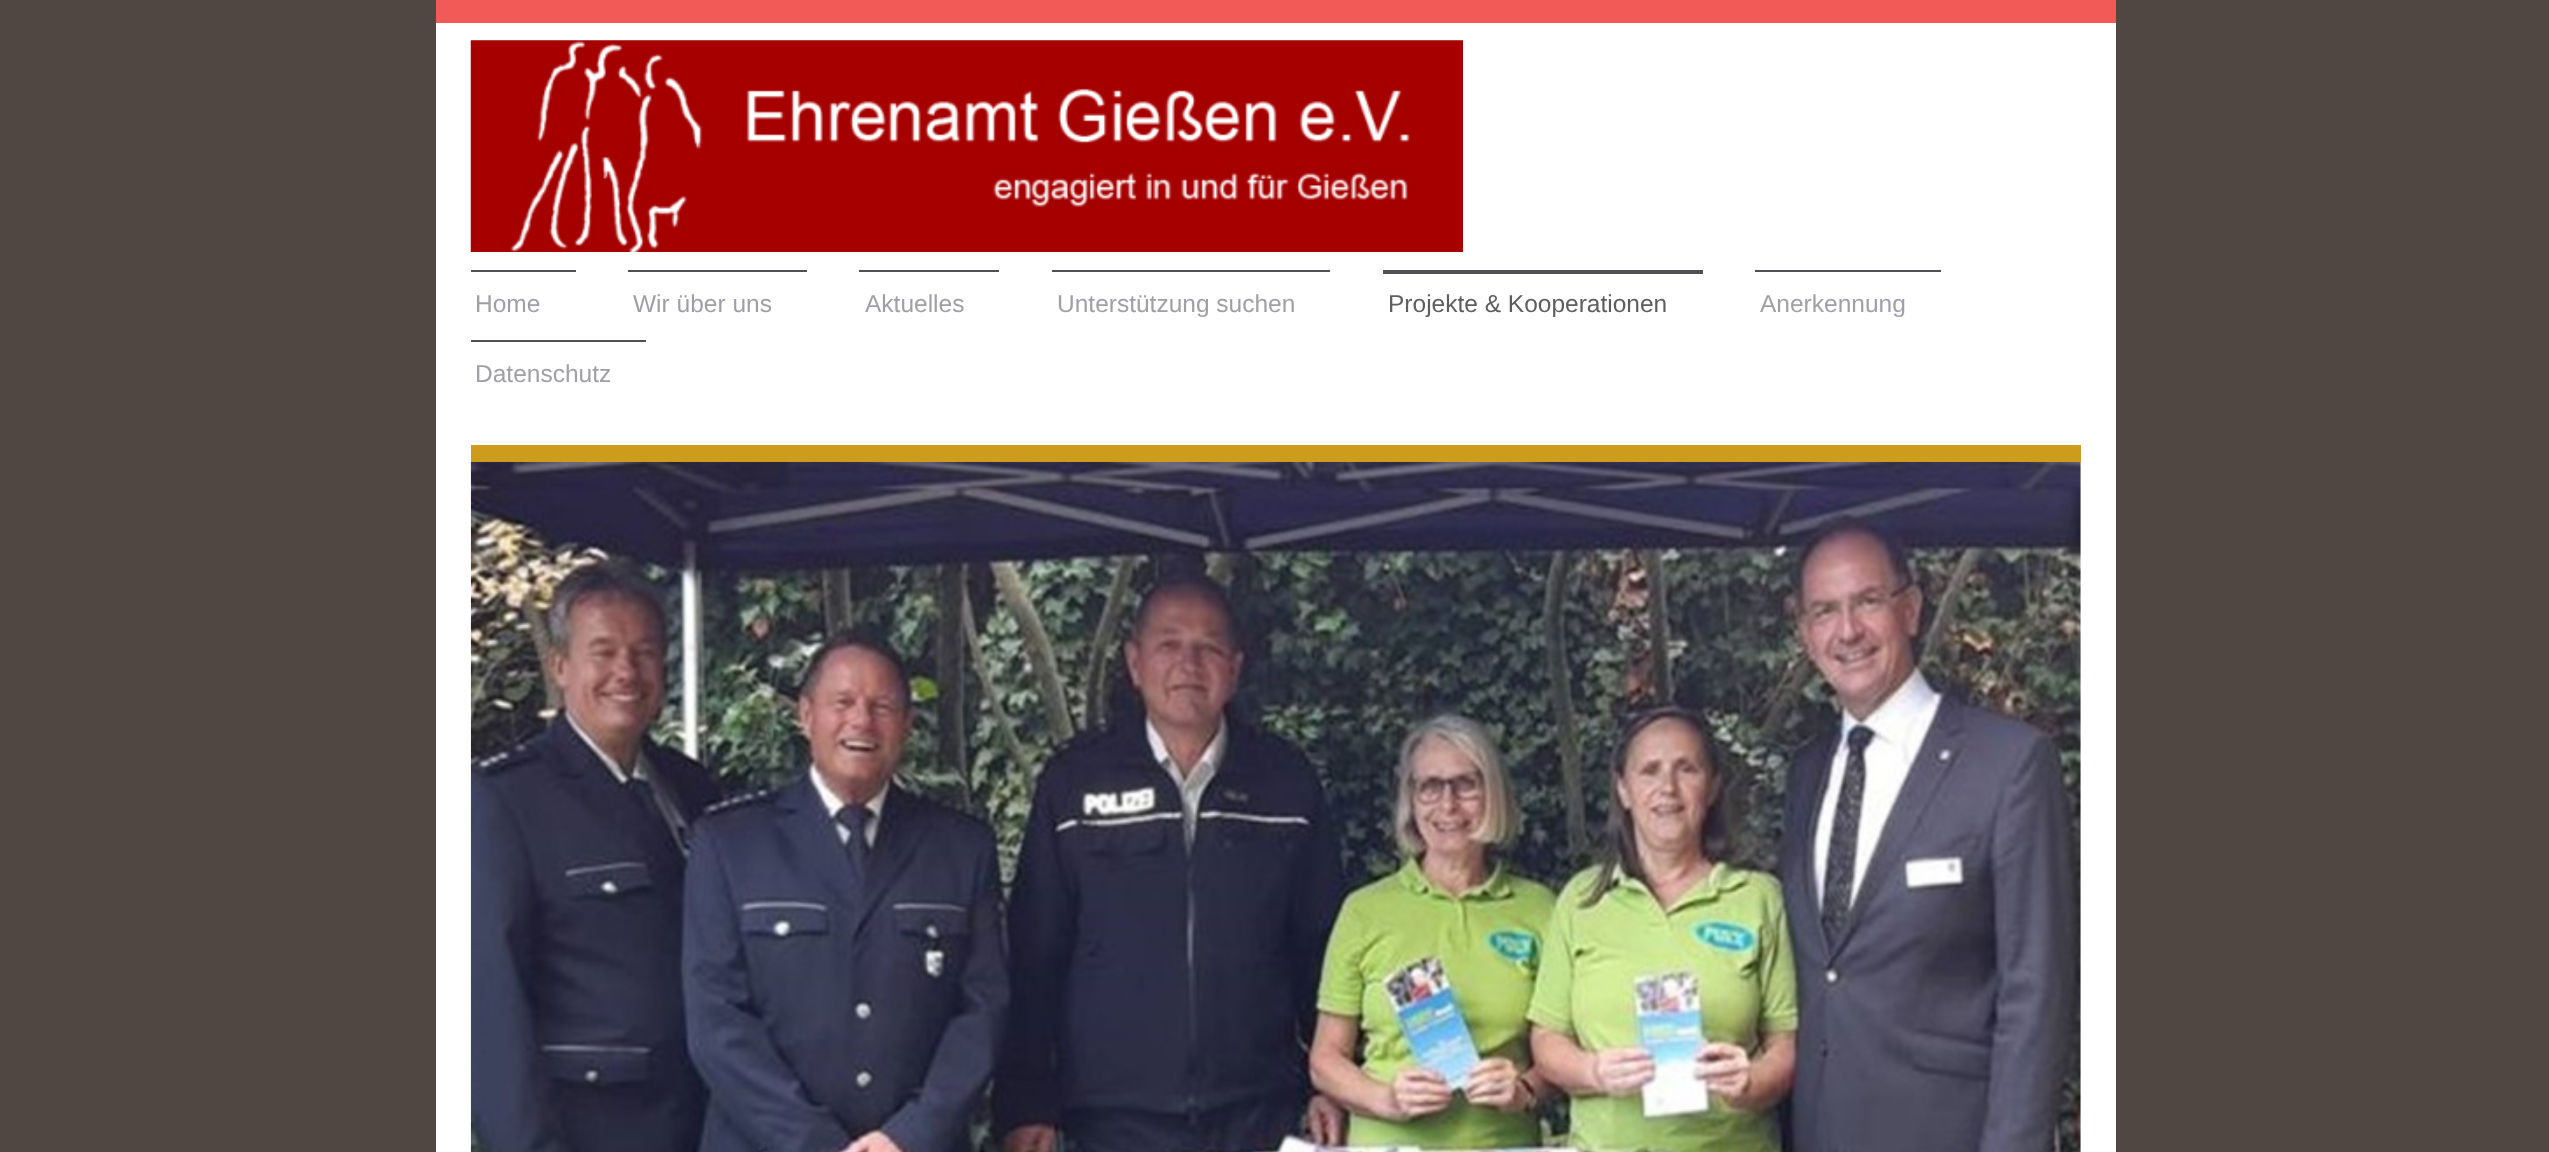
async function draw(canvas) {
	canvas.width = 2549;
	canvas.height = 1152;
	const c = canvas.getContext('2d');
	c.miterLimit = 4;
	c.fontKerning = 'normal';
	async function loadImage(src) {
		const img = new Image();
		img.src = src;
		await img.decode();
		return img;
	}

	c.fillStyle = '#504742';
	c.fillRect(0, 0, 2549, 1152);
	c.fillStyle = '#fff';
	c.fillRect(436, 23, 1680, 1129);
	c.fillStyle = '#f25a58';
	c.fillRect(436, 0, 1680, 23);
	c.drawImage(await loadImage('img1.png'), 470, 40, 993, 212);
	c.fillStyle = '#4f4f58';
	c.fillRect(471, 270, 105, 2);
	c.font = '24.5px Liberation Sans';
	c.fillStyle = '#9f9fa8';
	c.fillText('Home', 475, 312);
	c.fillStyle = '#4f4f58';
	c.fillRect(628, 270, 179, 2);
	c.fillStyle = '#9f9fa8';
	c.fillText('Wir über uns', 633, 312);
	c.fillStyle = '#4f4f58';
	c.fillRect(859, 270, 140, 2);
	c.fillStyle = '#9f9fa8';
	c.fillText('Aktuelles', 865, 312);
	c.fillStyle = '#4f4f58';
	c.fillRect(1052, 270, 278, 2);
	c.fillStyle = '#9f9fa8';
	c.fillText('Unterstützung suchen', 1057, 312);
	c.fillStyle = '#4f4f58';
	c.fillRect(1383, 270, 320, 4);
	c.fillStyle = '#5e5e5e';
	c.fillText('Projekte & Kooperationen', 1388, 312);
	c.fillStyle = '#4f4f58';
	c.fillRect(1755, 270, 186, 2);
	c.fillStyle = '#9f9fa8';
	c.fillText('Anerkennung', 1760, 312);
	c.fillStyle = '#4f4f58';
	c.fillRect(471, 340, 175, 2);
	c.fillStyle = '#9f9fa8';
	c.fillText('Datenschutz', 475, 382);
	c.fillStyle = '#ce9c1c';
	c.fillRect(471, 445, 1610, 17);
	c.drawImage(await loadImage('img2.png'), 470, 462, 1611, 690);
}

draw(document.querySelector('canvas'));
